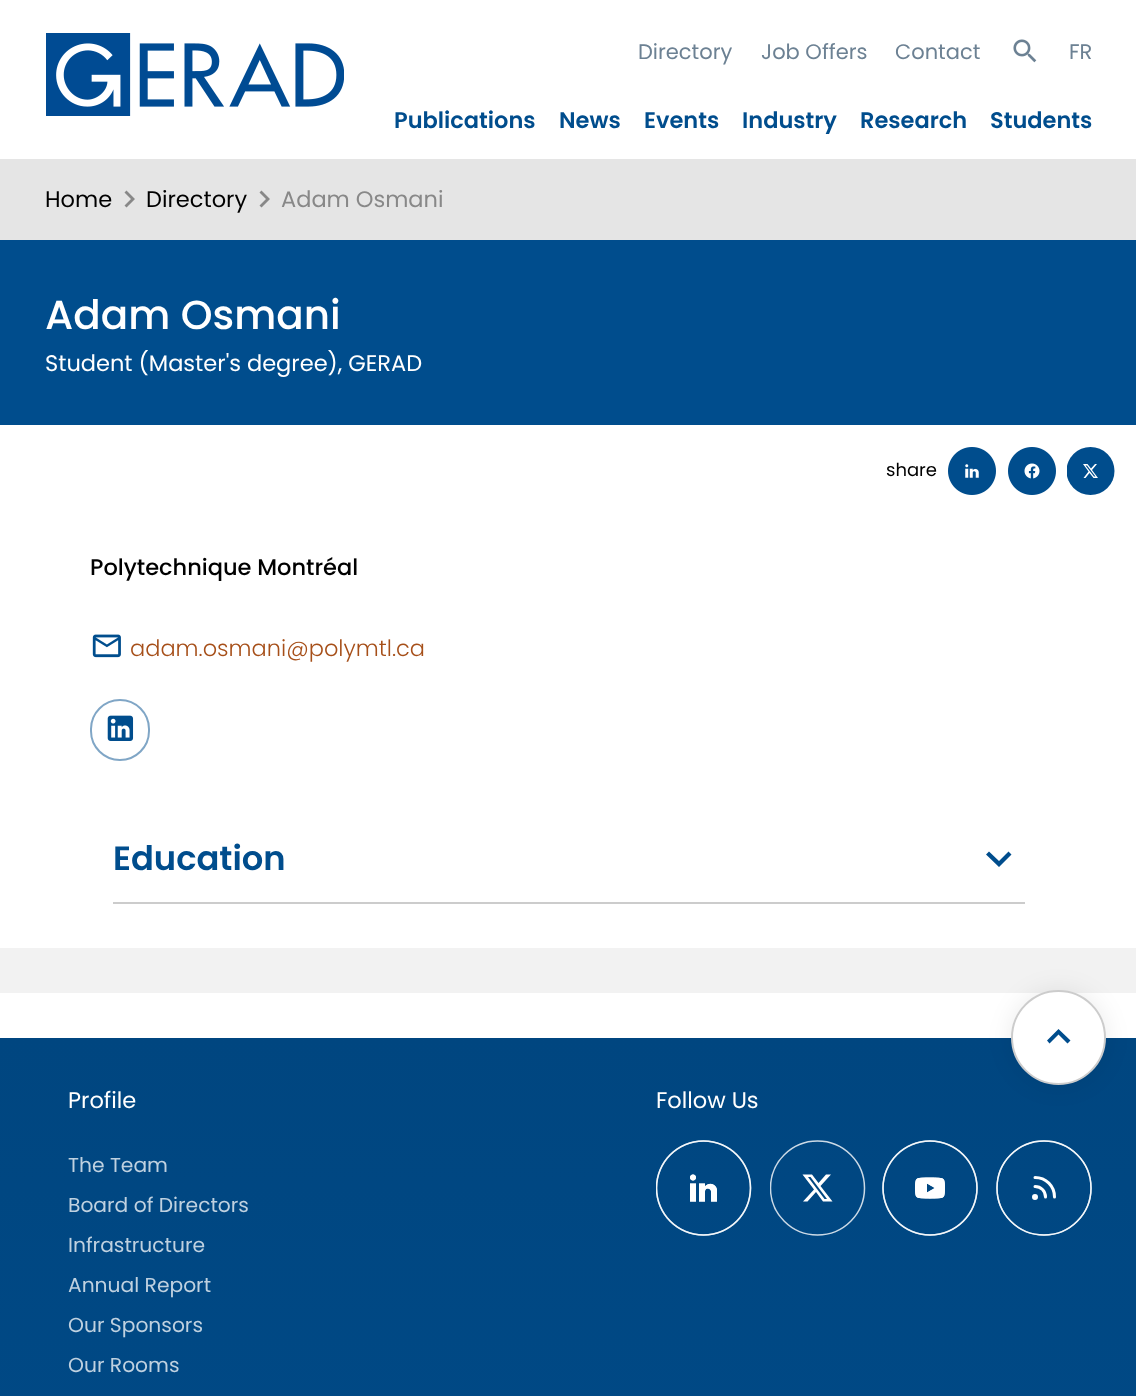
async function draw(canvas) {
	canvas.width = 1136;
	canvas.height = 1396;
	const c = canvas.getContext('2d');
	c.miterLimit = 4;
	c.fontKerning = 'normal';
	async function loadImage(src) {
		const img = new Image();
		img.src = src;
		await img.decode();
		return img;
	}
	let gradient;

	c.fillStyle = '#fff';
	c.fillRect(0, 0, 1136, 1396);
	c.drawImage(await loadImage('img1.png'), 46, 33, 298, 83);
	c.font = '21px Poppins';
	c.fillStyle = '#6c8193';
	for (const [text, x, y] of [
		['Directory', 638, 59],
		['Job Offers', 761, 59],
		['Contact', 895, 59],
	]) {
		c.fillText(text, x, y);
	}
	c.drawImage(await loadImage('img2.png'), 1013, 39, 24, 24);
	c.fillText('FR', 1069, 59);
	c.font = '600 22.5px Poppins';
	c.fillStyle = '#004d8d';
	for (const [text, x, y] of [
		['Publications', 394, 128],
		['News', 559, 128],
		['Events', 644, 128],
		['Industry', 742, 128],
		['Research', 860, 128],
		['Students', 990, 128],
	]) {
		c.fillText(text, x, y);
	}
	c.fillStyle = '#f2f2f2';
	c.fillRect(0, 948, 1136, 45);
	c.fillStyle = '#e5e5e5';
	c.fillRect(0, 159, 1136, 81);
	c.font = '22.5px Poppins';
	c.fillStyle = '#000';
	c.fillText('Home', 45, 207);
	c.fillStyle = '#888';
	c.beginPath();
	c.moveTo(124.5, 205.5);
	c.lineTo(131, 199);
	c.lineTo(124.5, 192.5);
	c.lineTo(126.5, 190.5);
	c.lineTo(135, 199);
	c.lineTo(126.5, 207.5);
	c.closePath();
	c.fill();
	c.fillStyle = '#000';
	c.fillText('Directory', 146, 207);
	c.fillStyle = '#888';
	c.beginPath();
	c.moveTo(259.5, 205.5);
	c.lineTo(266, 199);
	c.lineTo(259.5, 192.5);
	c.lineTo(261.5, 190.5);
	c.lineTo(270, 199);
	c.lineTo(261.5, 207.5);
	c.closePath();
	c.fill();
	c.fillText('Adam Osmani', 281, 207);
	c.fillStyle = '#004d8d';
	c.fillRect(0, 240, 1136, 185);
	c.font = '500 40.5px Poppins';
	c.fillStyle = '#fff';
	c.fillText('Adam Osmani', 45, 329);
	c.font = '22.5px Poppins';
	c.fillText('Student (Master\'s degree), GERAD', 45, 371);
	c.font = '18px Poppins';
	c.fillStyle = '#000';
	c.fillText('share', 886, 476);
	c.drawImage(await loadImage('img3.png'), 948, 447, 48, 48);
	c.drawImage(await loadImage('img4.png'), 1008, 447, 48, 48);
	c.save();
	c.beginPath();
	c.rect(1067, 447, 48, 48);
	c.clip();
	c.fillStyle = '#004d8d';
	c.beginPath();
	c.arc(1090.5, 471, 24, 0, 2 * Math.PI);
	c.fill();
	c.restore();
	c.fillStyle = '#fff';
	c.beginPath();
	c.moveTo(1095, 464);
	c.lineTo(1097, 464);
	c.lineTo(1092, 470);
	c.lineTo(1098, 478);
	c.lineTo(1093.5, 478);
	c.lineTo(1089.5, 473);
	c.lineTo(1085.5, 478);
	c.lineTo(1083.5, 478);
	c.lineTo(1088.5, 471.5);
	c.lineTo(1083, 464);
	c.lineTo(1087.5, 464);
	c.lineTo(1091, 468.5);
	c.closePath();
	c.moveTo(1094, 476.5);
	c.lineTo(1095.5, 476.5);
	c.lineTo(1087, 465.5);
	c.lineTo(1085.5, 465.5);
	c.closePath();
	c.fill();
	c.font = '500 22.5px Poppins';
	c.fillStyle = '#000';
	c.fillText('Polytechnique Montréal', 90, 575);
	c.drawImage(await loadImage('img5.png'), 92, 634, 29, 24);
	c.font = '300 22.5px Poppins';
	c.fillStyle = '#a64f19';
	c.fillText('adam.osmani@polymtl.ca', 130, 656);
	c.beginPath();
	c.roundRect(91, 700, 58, 60, 29);
	c.strokeStyle = '#80a6c6';
	c.lineWidth = 2;
	c.stroke();
	c.drawImage(await loadImage('img6.png'), 107, 715, 27, 26);
	c.fillStyle = '#ccc';
	c.fillRect(113, 902, 912, 2);
	c.font = '600 33.75px Poppins';
	c.fillStyle = '#004d8d';
	c.fillText('Education', 113, 870);
	c.beginPath();
	c.moveTo(989, 851.5);
	c.lineTo(999, 861);
	c.lineTo(1008.5, 851.5);
	c.lineTo(1011.5, 854.5);
	c.lineTo(999, 867);
	c.lineTo(986, 854.5);
	c.closePath();
	c.fill();
	gradient = c.createLinearGradient(568, 1038, 569, 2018);
	gradient.addColorStop(0, '#004680');
	gradient.addColorStop(1, '#004d8d');
	c.fillStyle = gradient;
	c.fillRect(0, 1038, 1136, 358);
	c.fillStyle = '#00000014';
	c.filter = 'blur(12px)';
	c.beginPath();
	c.roundRect(1011, 990, 95, 95, 47.5);
	c.fill();
	c.filter = 'none';
	c.fillStyle = '#fff';
	c.beginPath();
	c.arc(1058.5, 1037.5, 46.5, 0, 2 * Math.PI);
	c.fill();
	c.strokeStyle = '#ccc';
	c.stroke();
	c.fillStyle = '#004d8d';
	c.beginPath();
	c.moveTo(1049.5, 1043.5);
	c.lineTo(1058.5, 1034.5);
	c.lineTo(1067.5, 1043.5);
	c.lineTo(1070.5, 1040.5);
	c.lineTo(1058.5, 1029);
	c.lineTo(1047, 1040.5);
	c.closePath();
	c.fill();
	c.font = '22.5px Poppins';
	c.fillStyle = '#fff';
	c.fillText('Profile', 68, 1108);
	c.font = '20.25px Poppins';
	c.fillStyle = '#bfd1e0';
	for (const [text, x, y] of [
		['The Team', 68, 1172],
		['Board of Directors', 68, 1212],
		['Infrastructure', 68, 1252],
		['Annual Report', 68, 1292],
		['Our Sponsors', 68, 1332],
		['Our Rooms', 68, 1372],
	]) {
		c.fillText(text, x, y);
	}
	c.font = '22.5px Poppins';
	c.fillStyle = '#fff';
	c.fillText('Follow Us', 656, 1108);
	c.drawImage(await loadImage('img7.png'), 656, 1140, 96, 96);
	c.save();
	c.beginPath();
	c.rect(770, 1140, 96, 96);
	c.clip();
	c.beginPath();
	c.arc(817.5, 1188, 47, 0, 2 * Math.PI);
	c.strokeStyle = '#ccdae6';
	c.lineWidth = 1.5;
	c.stroke();
	c.restore();
	c.beginPath();
	c.moveTo(826, 1174.5);
	c.lineTo(831, 1174.5);
	c.lineTo(820.5, 1186);
	c.lineTo(832.5, 1201.5);
	c.lineTo(823, 1201.5);
	c.lineTo(816, 1192);
	c.lineTo(807.5, 1201.5);
	c.lineTo(803, 1201.5);
	c.lineTo(814, 1189.5);
	c.lineTo(802.5, 1174.5);
	c.lineTo(812, 1174.5);
	c.lineTo(818.5, 1183);
	c.closePath();
	c.moveTo(824.5, 1199);
	c.lineTo(827, 1199);
	c.lineTo(810.5, 1177);
	c.lineTo(808, 1177);
	c.closePath();
	c.fill();
	c.drawImage(await loadImage('img8.png'), 882, 1140, 96, 96);
	c.beginPath();
	c.arc(1044, 1188, 47, 0, 2 * Math.PI);
	c.strokeStyle = '#ccdae6';
	c.lineWidth = 1.5;
	c.stroke();
	c.beginPath();
	c.arc(1044, 1188, 47, 0, 2 * Math.PI);
	c.strokeStyle = '#ffffffcc';
	c.stroke();
	c.beginPath();
	c.moveTo(1035, 1177.5);
	c.bezierCurveTo(1046, 1177.5, 1054.5, 1186, 1054.5, 1197);
	c.moveTo(1035, 1186.5);
	c.bezierCurveTo(1041, 1186.5, 1045.5, 1191, 1045.5, 1197);
	c.moveTo(1036.5, 1197);
	c.bezierCurveTo(1036.5, 1199, 1033.5, 1199, 1033.5, 1197);
	c.bezierCurveTo(1033.5, 1195, 1036.5, 1195, 1036.5, 1197);
	c.closePath();
	c.strokeStyle = '#fff';
	c.lineWidth = 3;
	c.lineCap = 'round';
	c.lineJoin = 'round';
	c.stroke();
}

draw(document.querySelector('canvas'));
